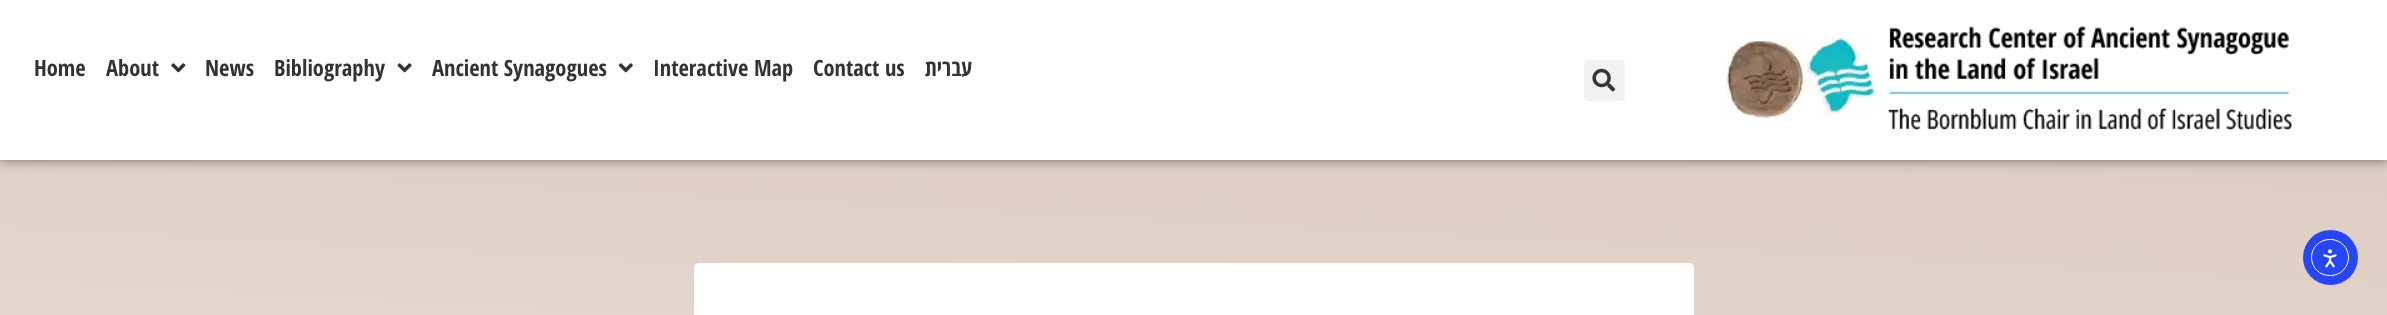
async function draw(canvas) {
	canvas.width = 2387;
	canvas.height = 315;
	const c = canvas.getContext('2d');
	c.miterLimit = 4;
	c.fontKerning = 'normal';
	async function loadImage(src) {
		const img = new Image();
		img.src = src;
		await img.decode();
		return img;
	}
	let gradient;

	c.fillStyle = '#fff';
	c.fillRect(0, 0, 2387, 315);
	gradient = c.createLinearGradient(1255, -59, 1132, 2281);
	gradient.addColorStop(0, '#dac7ba');
	gradient.addColorStop(0.67, '#fff');
	c.fillStyle = gradient;
	c.fillRect(0, 160, 2387, 155);
	c.fillStyle = '#00000080';
	c.filter = 'blur(6px)';
	c.beginPath();
	c.rect(0, 0, 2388, 160);
	c.fill();
	c.filter = 'none';
	c.fillStyle = '#fff';
	c.fillRect(0, 0, 2387, 160);
	c.font = 'bold 22.5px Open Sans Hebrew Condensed';
	c.fillStyle = '#333';
	c.fillText('Home', 34, 76);
	c.fillText('About', 106, 76);
	c.drawImage(await loadImage('img1.png'), 171, 63, 15, 10);
	c.fillText('News', 205, 76);
	c.fillText('Bibliography', 274, 76);
	c.drawImage(await loadImage('img2.png'), 397, 63, 15, 10);
	c.fillText('Ancient Synagogues', 432, 76);
	c.drawImage(await loadImage('img3.png'), 618, 63, 15, 10);
	c.fillText('Interactive Map', 653, 76);
	c.fillText('Contact us', 813, 76);
	c.direction = 'rtl';
	c.fillText('עברית', 972, 76);
	c.fillStyle = '#f2f2f2';
	c.beginPath();
	c.roundRect(1584, 60, 41, 41, 4);
	c.fill();
	c.drawImage(await loadImage('img4.png'), 1592, 68, 24, 24);
	c.drawImage(await loadImage('img5.png'), 1726, 26, 567, 105);
	c.fillStyle = '#2847f3';
	c.beginPath();
	c.arc(2330.5, 257.5, 27.5, 0, 2 * Math.PI);
	c.fill();
	c.beginPath();
	c.roundRect(2311.5, 239.5, 37, 36, 18);
	c.strokeStyle = '#fff';
	c.stroke();
	c.drawImage(await loadImage('img6.png'), 2323, 249, 14, 19);
	c.fillStyle = '#fff';
	c.beginPath();
	c.roundRect(694, 263, 1000, 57, 5);
	c.fill();
}

draw(document.querySelector('canvas'));
